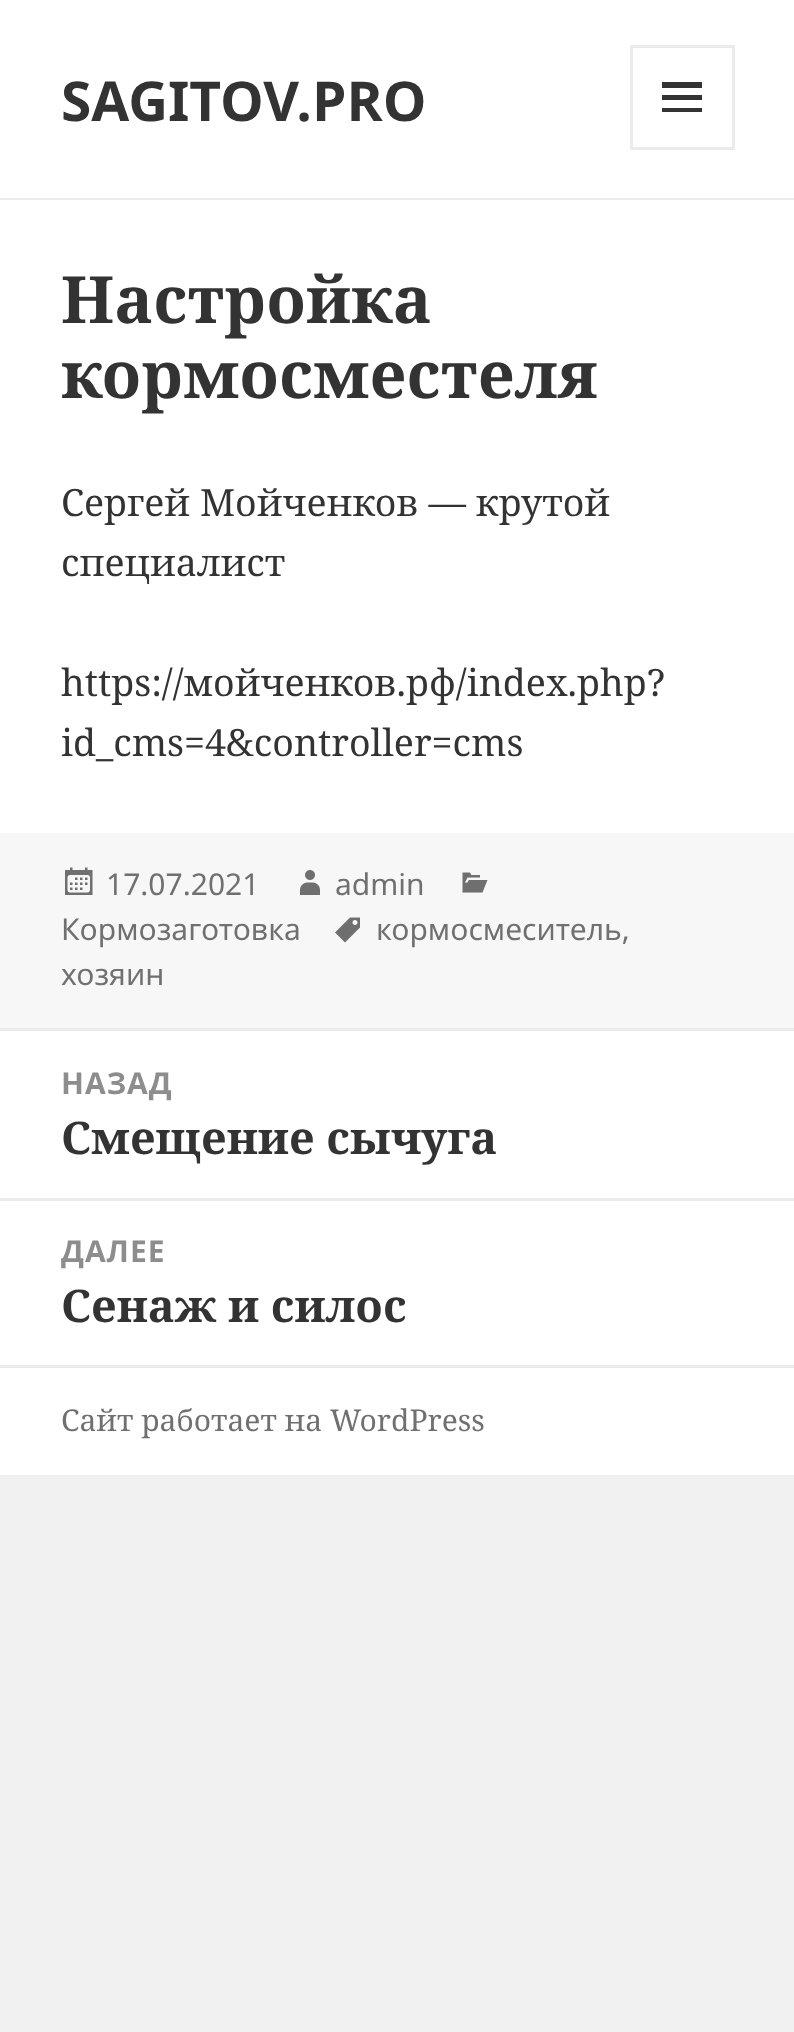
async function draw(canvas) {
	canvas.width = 794;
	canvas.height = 2032;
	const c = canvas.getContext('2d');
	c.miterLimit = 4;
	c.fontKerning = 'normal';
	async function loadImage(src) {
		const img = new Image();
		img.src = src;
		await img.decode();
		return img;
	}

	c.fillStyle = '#f1f1f1';
	c.fillRect(0, 0, 794, 2032);
	c.fillStyle = '#fff';
	c.fillRect(0, 0, 794, 198);
	c.fillStyle = '#ebebeb';
	c.fillRect(0, 198, 794, 2);
	c.font = 'bold 55px Noto Sans';
	c.fillStyle = '#333';
	c.fillText('SAGITOV.PRO', 61, 121);
	c.strokeStyle = '#ebebeb';
	c.lineWidth = 3;
	c.strokeRect(631.5, 46.5, 102, 102);
	c.beginPath();
	c.moveTo(662, 112);
	c.lineTo(662, 108);
	c.lineTo(702, 108);
	c.lineTo(702, 112);
	c.closePath();
	c.moveTo(662, 82);
	c.lineTo(702, 82);
	c.lineTo(702, 88);
	c.lineTo(662, 88);
	c.closePath();
	c.moveTo(662, 100);
	c.lineTo(662, 95);
	c.lineTo(702, 95);
	c.lineTo(702, 100);
	c.closePath();
	c.fill();
	c.fillStyle = '#fff';
	c.fillRect(0, 200, 794, 633);
	c.font = 'bold 65px Noto Serif';
	c.fillStyle = '#333';
	c.fillText('Настройка', 61, 323);
	c.fillText('кормосместеля', 61, 398);
	c.font = '37.5px Noto Serif';
	for (const [text, x, y] of [
		['Сергей Мойченков — крутой', 61, 516],
		['специалист', 61, 576],
		['https://мойченков.рф/index.php?', 61, 696],
		['id_cms=4&controller=cms', 61, 756],
	]) {
		c.fillText(text, x, y);
	}
	c.fillStyle = '#f7f7f7';
	c.fillRect(0, 833, 794, 195);
	c.drawImage(await loadImage('img1.png'), 65, 867, 28, 28);
	c.font = '30px Noto Sans';
	c.fillStyle = '#707070';
	c.fillText('17.07.2021', 106, 895);
	c.drawImage(await loadImage('img2.png'), 300, 870, 20, 25);
	c.fillText('admin', 335, 895);
	c.drawImage(await loadImage('img3.png'), 462, 872, 26, 21);
	c.fillText('Кормозаготовка', 61, 940);
	c.drawImage(await loadImage('img4.png'), 335, 917, 25, 26);
	c.fillText('кормосмеситель,', 376, 940);
	c.fillText('хозяин', 61, 985);
	c.fillStyle = '#fff';
	c.fillRect(0, 1031, 794, 334);
	c.fillStyle = '#ebebeb';
	c.fillRect(0, 1028, 794, 3);
	c.letterSpacing = '1px';
	c.font = 'bold 30px Noto Sans';
	c.fillStyle = '#8d8d8d';
	c.fillText('НАЗАД', 61, 1094);
	c.letterSpacing = '0px';
	c.font = 'bold 45px Noto Serif';
	c.fillStyle = '#333';
	c.fillText('Смещение сычуга', 61, 1154);
	c.fillStyle = '#ebebeb';
	c.fillRect(0, 1198, 794, 3);
	c.letterSpacing = '1px';
	c.font = 'bold 30px Noto Sans';
	c.fillStyle = '#8d8d8d';
	c.fillText('ДАЛЕЕ', 61, 1262);
	c.letterSpacing = '0px';
	c.font = 'bold 45px Noto Serif';
	c.fillStyle = '#333';
	c.fillText('Сенаж и силос', 61, 1322);
	c.fillStyle = '#fff';
	c.fillRect(0, 1368, 794, 107);
	c.fillStyle = '#ebebeb';
	c.fillRect(0, 1365, 794, 3);
	c.font = '30px Noto Serif';
	c.fillStyle = '#707070';
	c.fillText('Сайт работает на WordPress', 61, 1431);
}

draw(document.querySelector('canvas'));
